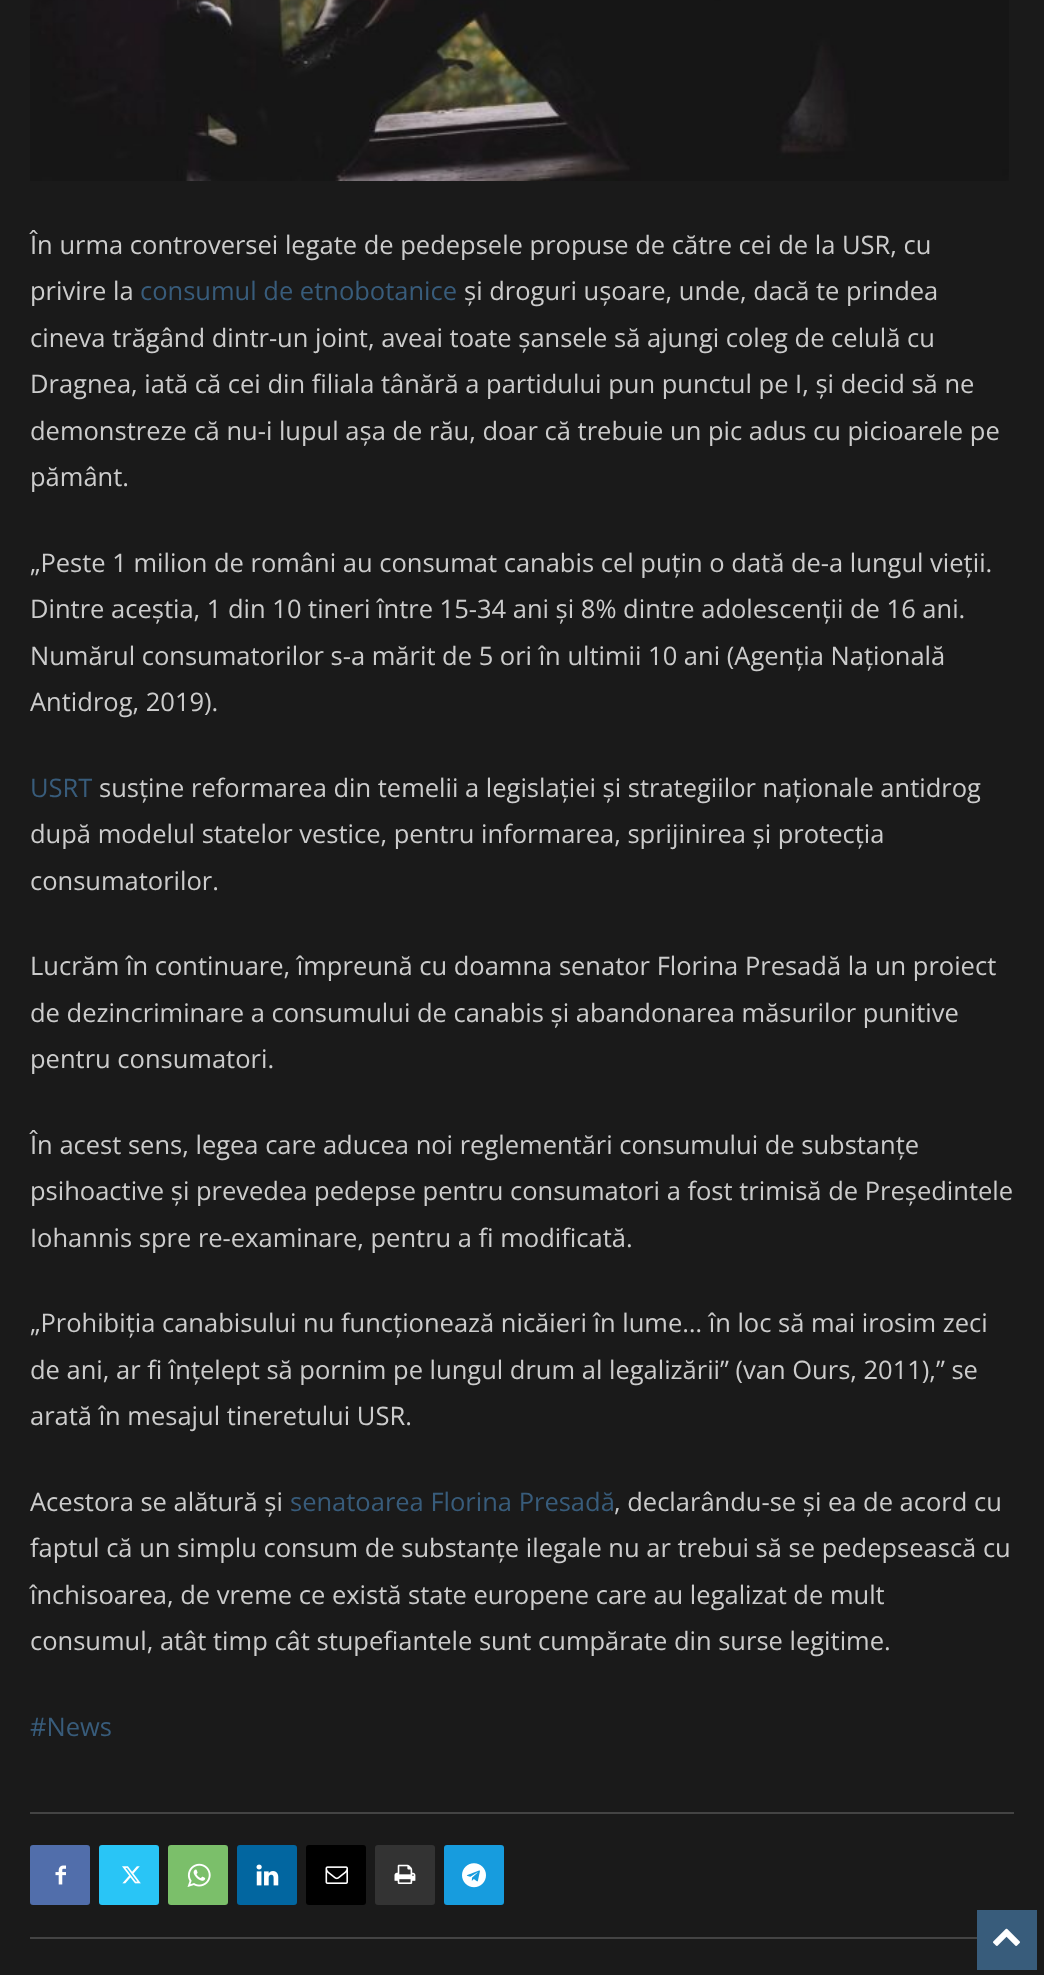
async function draw(canvas) {
	canvas.width = 1044;
	canvas.height = 1975;
	const c = canvas.getContext('2d');
	c.miterLimit = 4;
	c.fontKerning = 'normal';
	async function loadImage(src) {
		const img = new Image();
		img.src = src;
		await img.decode();
		return img;
	}

	c.fillStyle = '#1a1a1a';
	c.fillRect(0, 0, 1044, 1975);
	c.drawImage(await loadImage('img1.png'), 30, 0, 979, 181);
	c.font = '25.5px Open Sans';
	c.fillStyle = '#ccc';
	c.fillText('În urma controversei legate de pedepsele propuse de către cei de la USR, cu', 30, 254);
	c.fillText('privire la', 30, 300);
	c.fillStyle = '#385c7b';
	c.fillText('consumul de etnobotanice', 140, 300);
	c.fillStyle = '#ccc';
	for (const [text, x, y] of [
		['și droguri ușoare, unde, dacă te prindea', 464, 300],
		['cineva trăgând dintr-un joint, aveai toate șansele să ajungi coleg de celulă cu', 30, 347],
		['Dragnea, iată că cei din filiala tânără a partidului pun punctul pe I, și decid să ne', 30, 393],
		['demonstreze că nu-i lupul așa de rău, doar că trebuie un pic adus cu picioarele pe', 30, 440],
		['pământ.', 30, 486],
		['„Peste 1 milion de români au consumat canabis cel puțin o dată de-a lungul vieții.', 30, 572],
		['Dintre aceștia, 1 din 10 tineri între 15-34 ani și 8% dintre adolescenții de 16 ani.', 30, 618],
		['Numărul consumatorilor s-a mărit de 5 ori în ultimii 10 ani (Agenția Națională', 30, 665],
		['Antidrog, 2019).', 30, 711],
	]) {
		c.fillText(text, x, y);
	}
	c.fillStyle = '#385c7b';
	c.fillText('USRT', 30, 797);
	c.fillStyle = '#ccc';
	for (const [text, x, y] of [
		['susține reformarea din temelii a legislației și strategiilor naționale antidrog', 99, 797],
		['după modelul statelor vestice, pentru informarea, sprijinirea și protecția', 30, 843],
		['consumatorilor.', 30, 890],
		['Lucrăm în continuare, împreună cu doamna senator Florina Presadă la un proiect', 30, 975],
		['de dezincriminare a consumului de canabis și abandonarea măsurilor punitive', 30, 1022],
		['pentru consumatori.', 30, 1068],
		['În acest sens, legea care aducea noi reglementări consumului de substanțe', 30, 1154],
		['psihoactive și prevedea pedepse pentru consumatori a fost trimisă de Președintele', 30, 1200],
		['Iohannis spre re-examinare, pentru a fi modificată.', 30, 1247],
		['„Prohibiția canabisului nu funcționează nicăieri în lume… în loc să mai irosim zeci', 30, 1332],
		['de ani, ar fi înțelept să pornim pe lungul drum al legalizării” (van Ours, 2011),” se', 30, 1379],
		['arată în mesajul tineretului USR.', 30, 1425],
		['Acestora se alătură și', 30, 1511],
	]) {
		c.fillText(text, x, y);
	}
	c.fillStyle = '#385c7b';
	c.fillText('senatoarea Florina Presadă', 290, 1511);
	c.fillStyle = '#ccc';
	for (const [text, x, y] of [
		[', declarându-se și ea de acord cu', 614, 1511],
		['faptul că un simplu consum de substanțe ilegale nu ar trebui să se pedepsească cu', 30, 1557],
		['închisoarea, de vreme ce există state europene care au legalizat de mult', 30, 1604],
		['consumul, atât timp cât stupefiantele sunt cumpărate din surse legitime.', 30, 1650],
	]) {
		c.fillText(text, x, y);
	}
	c.fillStyle = '#385c7b';
	c.fillText('#News', 30, 1736);
	c.fillStyle = '#444';
	c.fillRect(30, 1812, 984, 2);
	c.fillRect(30, 1937, 947, 2);
	c.fillStyle = '#516eab';
	c.beginPath();
	c.roundRect(30, 1845, 60, 60, 3);
	c.fill();
	c.drawImage(await loadImage('img2.png'), 55, 1865, 11, 20);
	c.fillStyle = '#29c5f6';
	c.beginPath();
	c.roundRect(99, 1845, 60, 60, 3);
	c.fill();
	c.drawImage(await loadImage('img3.png'), 122, 1866, 19, 18);
	c.fillStyle = '#7bbf6a';
	c.beginPath();
	c.roundRect(168, 1845, 60, 60, 3);
	c.fill();
	c.drawImage(await loadImage('img4.png'), 187, 1863, 24, 24);
	c.fillStyle = '#0266a0';
	c.beginPath();
	c.roundRect(237, 1845, 60, 60, 3);
	c.fill();
	c.drawImage(await loadImage('img5.png'), 256, 1864, 23, 22);
	c.fillStyle = '#000';
	c.beginPath();
	c.roundRect(306, 1845, 60, 60, 3);
	c.fill();
	c.drawImage(await loadImage('img6.png'), 325, 1866, 23, 18);
	c.fillStyle = '#333';
	c.beginPath();
	c.roundRect(375, 1845, 60, 60, 3);
	c.fill();
	c.drawImage(await loadImage('img7.png'), 394, 1864, 22, 20);
	c.fillStyle = '#179cde';
	c.beginPath();
	c.roundRect(444, 1845, 60, 60, 3);
	c.fill();
	c.drawImage(await loadImage('img8.png'), 462, 1863, 24, 25);
	c.fillStyle = '#385c7b';
	c.fillRect(977, 1910, 60, 60);
	c.drawImage(await loadImage('img9.png'), 993, 1928, 27, 18);
}

draw(document.querySelector('canvas'));
